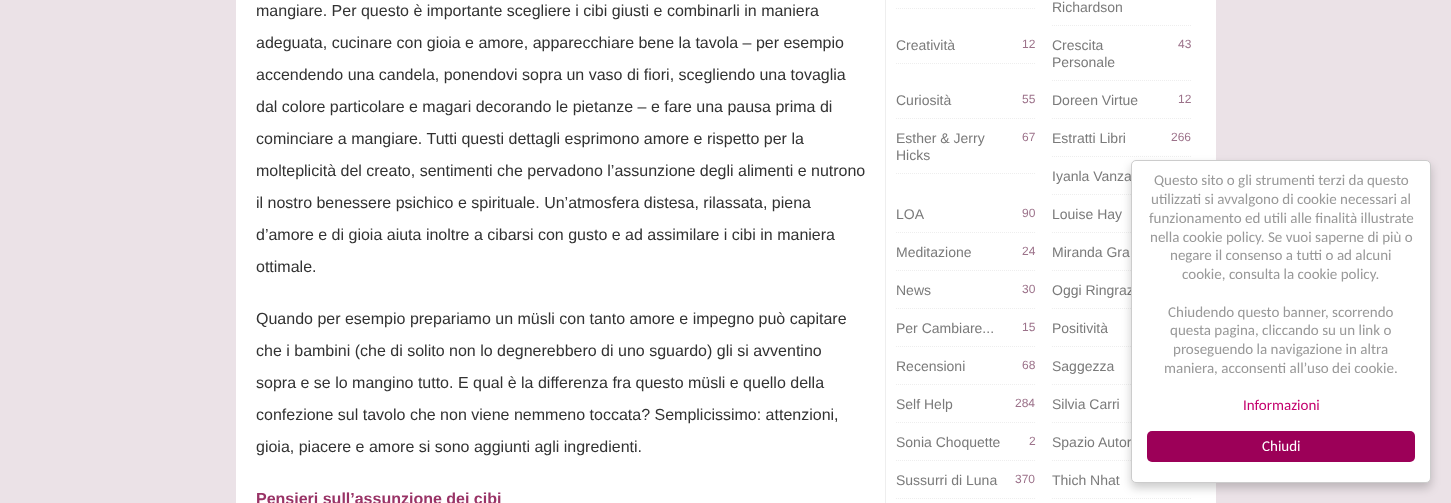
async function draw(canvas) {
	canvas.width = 1451;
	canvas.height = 503;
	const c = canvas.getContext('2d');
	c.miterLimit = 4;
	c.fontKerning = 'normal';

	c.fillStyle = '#ebe2e7';
	c.fillRect(0, 0, 1451, 503);
	c.fillStyle = '#fff';
	c.fillRect(236, 0, 980, 503);
	c.fillStyle = '#eee';
	c.fillRect(885, 0, 1, 503);
	c.font = '16px Liberation Sans';
	c.fillStyle = '#323232';
	for (const [text, x, y] of [
		['mangiare. Per questo è importante scegliere i cibi giusti e combinarli in maniera', 256, 16],
		['adeguata, cucinare con gioia e amore, apparecchiare bene la tavola – per esempio', 256, 48],
		['accendendo una candela, ponendovi sopra un vaso di fiori, scegliendo una tovaglia', 256, 80],
		['dal colore particolare e magari decorando le pietanze – e fare una pausa prima di', 256, 112],
		['cominciare a mangiare. Tutti questi dettagli esprimono amore e rispetto per la', 256, 144],
		['molteplicità del creato, sentimenti che pervadono l’assunzione degli alimenti e nutrono', 256, 176],
		['il nostro benessere psichico e spirituale. Un’atmosfera distesa, rilassata, piena', 256, 208],
		['d’amore e di gioia aiuta inoltre a cibarsi con gusto e ad assimilare i cibi in maniera', 256, 240],
		['ottimale.', 256, 272],
		['Quando per esempio prepariamo un müsli con tanto amore e impegno può capitare', 256, 324],
		['che i bambini (che di solito non lo degnerebbero di uno sguardo) gli si avventino', 256, 356],
		['sopra e se lo mangino tutto. E qual è la differenza fra questo müsli e quello della', 256, 388],
		['confezione sul tavolo che non viene nemmeno toccata? Semplicissimo: attenzioni,', 256, 420],
		['gioia, piacere e amore si sono aggiunti agli ingredienti.', 256, 452],
	]) {
		c.fillText(text, x, y);
	}
	c.font = 'bold 16px Liberation Sans';
	c.fillStyle = '#936';
	c.fillText('Pensieri sull’assunzione dei cibi', 256, 504);
	c.beginPath();
	c.moveTo(896, 8.5);
	c.lineTo(1036, 8.5);
	c.strokeStyle = '#eee';
	c.setLineDash([1, 1]);
	c.stroke();
	c.beginPath();
	c.moveTo(1052, 25.5);
	c.lineTo(1192, 25.5);
	c.stroke();
	c.font = '14px Liberation Sans';
	c.fillStyle = '#7a7a7a';
	c.fillText('Richardson', 1052, 12);
	c.beginPath();
	c.moveTo(896, 63.5);
	c.lineTo(1036, 63.5);
	c.stroke();
	c.fillText('Creatività', 896, 50);
	c.font = '12px Liberation Sans';
	c.fillStyle = '#9c728a';
	c.fillText('12', 1022, 48);
	c.beginPath();
	c.moveTo(1052, 80.5);
	c.lineTo(1192, 80.5);
	c.stroke();
	c.font = '14px Liberation Sans';
	c.fillStyle = '#7a7a7a';
	c.fillText('Crescita', 1052, 50);
	c.font = '12px Liberation Sans';
	c.fillStyle = '#9c728a';
	c.fillText('43', 1178, 48);
	c.font = '14px Liberation Sans';
	c.fillStyle = '#7a7a7a';
	c.fillText('Personale', 1052, 67);
	c.beginPath();
	c.moveTo(896, 118.5);
	c.lineTo(1036, 118.5);
	c.stroke();
	c.fillText('Curiosità', 896, 105);
	c.font = '12px Liberation Sans';
	c.fillStyle = '#9c728a';
	c.fillText('55', 1022, 103);
	c.beginPath();
	c.moveTo(1052, 118.5);
	c.lineTo(1192, 118.5);
	c.stroke();
	c.font = '14px Liberation Sans';
	c.fillStyle = '#7a7a7a';
	c.fillText('Doreen Virtue', 1052, 105);
	c.font = '12px Liberation Sans';
	c.fillStyle = '#9c728a';
	c.fillText('12', 1178, 103);
	c.beginPath();
	c.moveTo(896, 173.5);
	c.lineTo(1036, 173.5);
	c.stroke();
	c.font = '14px Liberation Sans';
	c.fillStyle = '#7a7a7a';
	c.fillText('Esther & Jerry', 896, 143);
	c.font = '12px Liberation Sans';
	c.fillStyle = '#9c728a';
	c.fillText('67', 1022, 141);
	c.font = '14px Liberation Sans';
	c.fillStyle = '#7a7a7a';
	c.fillText('Hicks', 896, 160);
	c.beginPath();
	c.moveTo(1052, 156.5);
	c.lineTo(1192, 156.5);
	c.stroke();
	c.fillText('Estratti Libri', 1052, 143);
	c.font = '12px Liberation Sans';
	c.fillStyle = '#9c728a';
	c.fillText('266', 1171, 141);
	c.beginPath();
	c.moveTo(1052, 194.5);
	c.lineTo(1192, 194.5);
	c.stroke();
	c.font = '14px Liberation Sans';
	c.fillStyle = '#7a7a7a';
	c.fillText('Iyanla Vanza', 1052, 181);
	c.beginPath();
	c.moveTo(896, 232.5);
	c.lineTo(1036, 232.5);
	c.stroke();
	c.fillText('LOA', 896, 219);
	c.font = '12px Liberation Sans';
	c.fillStyle = '#9c728a';
	c.fillText('90', 1022, 217);
	c.beginPath();
	c.moveTo(1052, 232.5);
	c.lineTo(1192, 232.5);
	c.stroke();
	c.font = '14px Liberation Sans';
	c.fillStyle = '#7a7a7a';
	c.fillText('Louise Hay', 1052, 219);
	c.beginPath();
	c.moveTo(896, 270.5);
	c.lineTo(1036, 270.5);
	c.stroke();
	c.fillText('Meditazione', 896, 257);
	c.font = '12px Liberation Sans';
	c.fillStyle = '#9c728a';
	c.fillText('24', 1022, 255);
	c.beginPath();
	c.moveTo(1052, 270.5);
	c.lineTo(1192, 270.5);
	c.stroke();
	c.font = '14px Liberation Sans';
	c.fillStyle = '#7a7a7a';
	c.fillText('Miranda Gra', 1052, 257);
	c.beginPath();
	c.moveTo(896, 308.5);
	c.lineTo(1036, 308.5);
	c.stroke();
	c.fillText('News', 896, 295);
	c.font = '12px Liberation Sans';
	c.fillStyle = '#9c728a';
	c.fillText('30', 1022, 293);
	c.beginPath();
	c.moveTo(1052, 308.5);
	c.lineTo(1192, 308.5);
	c.stroke();
	c.font = '14px Liberation Sans';
	c.fillStyle = '#7a7a7a';
	c.fillText('Oggi Ringraz', 1052, 295);
	c.beginPath();
	c.moveTo(896, 346.5);
	c.lineTo(1036, 346.5);
	c.stroke();
	c.fillText('Per Cambiare...', 896, 333);
	c.font = '12px Liberation Sans';
	c.fillStyle = '#9c728a';
	c.fillText('15', 1022, 331);
	c.beginPath();
	c.moveTo(1052, 346.5);
	c.lineTo(1192, 346.5);
	c.stroke();
	c.font = '14px Liberation Sans';
	c.fillStyle = '#7a7a7a';
	c.fillText('Positività', 1052, 333);
	c.beginPath();
	c.moveTo(896, 384.5);
	c.lineTo(1036, 384.5);
	c.stroke();
	c.fillText('Recensioni', 896, 371);
	c.font = '12px Liberation Sans';
	c.fillStyle = '#9c728a';
	c.fillText('68', 1022, 369);
	c.beginPath();
	c.moveTo(1052, 384.5);
	c.lineTo(1192, 384.5);
	c.stroke();
	c.font = '14px Liberation Sans';
	c.fillStyle = '#7a7a7a';
	c.fillText('Saggezza', 1052, 371);
	c.beginPath();
	c.moveTo(896, 422.5);
	c.lineTo(1036, 422.5);
	c.stroke();
	c.fillText('Self Help', 896, 409);
	c.font = '12px Liberation Sans';
	c.fillStyle = '#9c728a';
	c.fillText('284', 1015, 407);
	c.beginPath();
	c.moveTo(1052, 422.5);
	c.lineTo(1192, 422.5);
	c.stroke();
	c.font = '14px Liberation Sans';
	c.fillStyle = '#7a7a7a';
	c.fillText('Silvia Carri', 1052, 409);
	c.beginPath();
	c.moveTo(896, 460.5);
	c.lineTo(1036, 460.5);
	c.stroke();
	c.fillText('Sonia Choquette', 896, 447);
	c.font = '12px Liberation Sans';
	c.fillStyle = '#9c728a';
	c.fillText('2', 1029, 445);
	c.beginPath();
	c.moveTo(1052, 460.5);
	c.lineTo(1192, 460.5);
	c.stroke();
	c.font = '14px Liberation Sans';
	c.fillStyle = '#7a7a7a';
	c.fillText('Spazio Autor', 1052, 447);
	c.beginPath();
	c.moveTo(896, 498.5);
	c.lineTo(1036, 498.5);
	c.stroke();
	c.fillText('Sussurri di Luna', 896, 485);
	c.font = '12px Liberation Sans';
	c.fillStyle = '#9c728a';
	c.fillText('370', 1015, 483);
	c.beginPath();
	c.moveTo(1052, 498.5);
	c.lineTo(1192, 498.5);
	c.stroke();
	c.font = '14px Liberation Sans';
	c.fillStyle = '#7a7a7a';
	c.fillText('Thich Nhat', 1052, 485);
	c.fillStyle = '#00000033';
	c.filter = 'blur(5px)';
	c.beginPath();
	c.roundRect(1131, 165, 300, 323, 5);
	c.fill();
	c.filter = 'none';
	c.fillStyle = '#fff';
	c.beginPath();
	c.roundRect(1131.5, 160.5, 299, 322, 4.5);
	c.fill();
	c.strokeStyle = '#ccc';
	c.setLineDash([]);
	c.stroke();
	c.font = '15px Carlito';
	c.fillStyle = '#999';
	for (const [text, x, y] of [
		['Questo sito o gli strumenti terzi da questo', 1154, 185],
		['utilizzati si avvalgono di cookie necessari al', 1151, 204],
		['funzionamento ed utili alle finalità illustrate', 1149, 223],
		['nella cookie policy. Se vuoi saperne di più o', 1150, 242],
		['negare il consenso a tutti o ad alcuni', 1170, 260],
		['cookie, consulta la cookie policy.', 1182, 279],
		['Chiudendo questo banner, scorrendo', 1168, 317],
		['questa pagina, cliccando su un link o', 1170, 335],
		['proseguendo la navigazione in altra', 1173, 354],
		['maniera, acconsenti all’uso dei cookie.', 1164, 373],
	]) {
		c.fillText(text, x, y);
	}
	c.fillStyle = '#c4006e';
	c.fillText('Informazioni', 1243, 410);
	c.fillStyle = '#9c0058';
	c.beginPath();
	c.roundRect(1147, 431, 268, 31, 5);
	c.fill();
	c.fillStyle = '#fff';
	c.fillText('Chiudi', 1262, 451);
}

draw(document.querySelector('canvas'));
